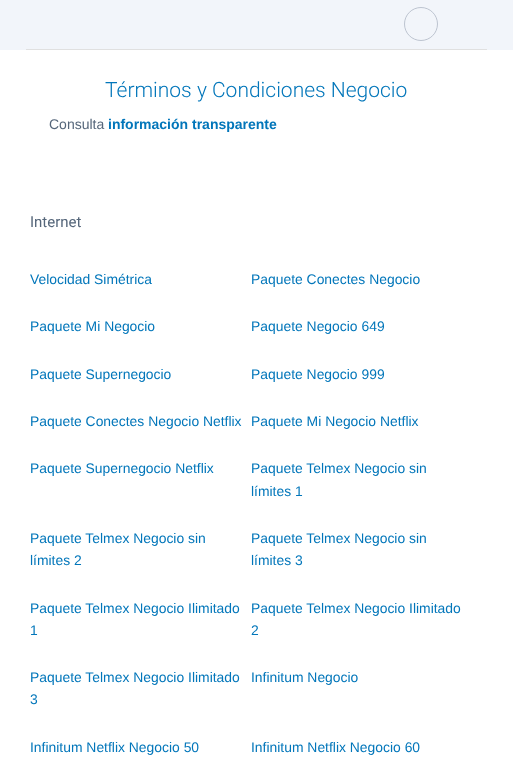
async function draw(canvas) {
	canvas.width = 513;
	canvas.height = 784;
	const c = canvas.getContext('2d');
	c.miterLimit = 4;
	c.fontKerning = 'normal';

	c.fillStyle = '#fff';
	c.fillRect(0, 0, 513, 784);
	c.fillStyle = '#f2f5fa';
	c.fillRect(0, 0, 513, 50);
	c.fillStyle = '#e0e0e0';
	c.fillRect(26, 49, 461, 1);
	c.beginPath();
	c.arc(421, 24, 16.5, 0, 2 * Math.PI);
	c.strokeStyle = '#bdc4d0';
	c.stroke();
	c.font = '300 21px Roboto';
	c.fillStyle = '#0276ba';
	c.fillText('Términos y Condiciones Negocio', 105, 97);
	c.font = '14px Liberation Sans';
	c.fillStyle = '#55667a';
	c.fillText('Consulta', 49, 129);
	c.font = 'bold 14px Liberation Sans';
	c.fillStyle = '#0276ba';
	c.fillText('información transparente', 108, 129);
	c.font = '15px Roboto';
	c.fillStyle = '#55667a';
	c.fillText('Internet', 30, 227);
	c.font = '13.9px Liberation Sans';
	c.fillStyle = '#0276ba';
	for (const [text, x, y] of [
		['Velocidad Simétrica', 30, 284],
		['Paquete Conectes Negocio', 251, 284],
		['Paquete Mi Negocio', 30, 331],
		['Paquete Negocio 649', 251, 331],
		['Paquete Supernegocio', 30, 379],
		['Paquete Negocio 999', 251, 379],
		['Paquete Conectes Negocio Netflix', 30, 426],
		['Paquete Mi Negocio Netflix', 251, 426],
		['Paquete Supernegocio Netflix', 30, 473],
		['Paquete Telmex Negocio sin', 251, 473],
		['límites 1', 251, 496],
		['Paquete Telmex Negocio sin', 30, 543],
		['límites 2', 30, 565],
		['Paquete Telmex Negocio sin', 251, 543],
		['límites 3', 251, 565],
		['Paquete Telmex Negocio Ilimitado', 30, 613],
		['1', 30, 635],
		['Paquete Telmex Negocio Ilimitado', 251, 613],
		['2', 251, 635],
		['Paquete Telmex Negocio Ilimitado', 30, 682],
		['3', 30, 704],
		['Infinitum Negocio', 251, 682],
		['Infinitum Netflix Negocio 50', 30, 752],
		['Infinitum Netflix Negocio 60', 251, 752],
	]) {
		c.fillText(text, x, y);
	}
}

draw(document.querySelector('canvas'));
